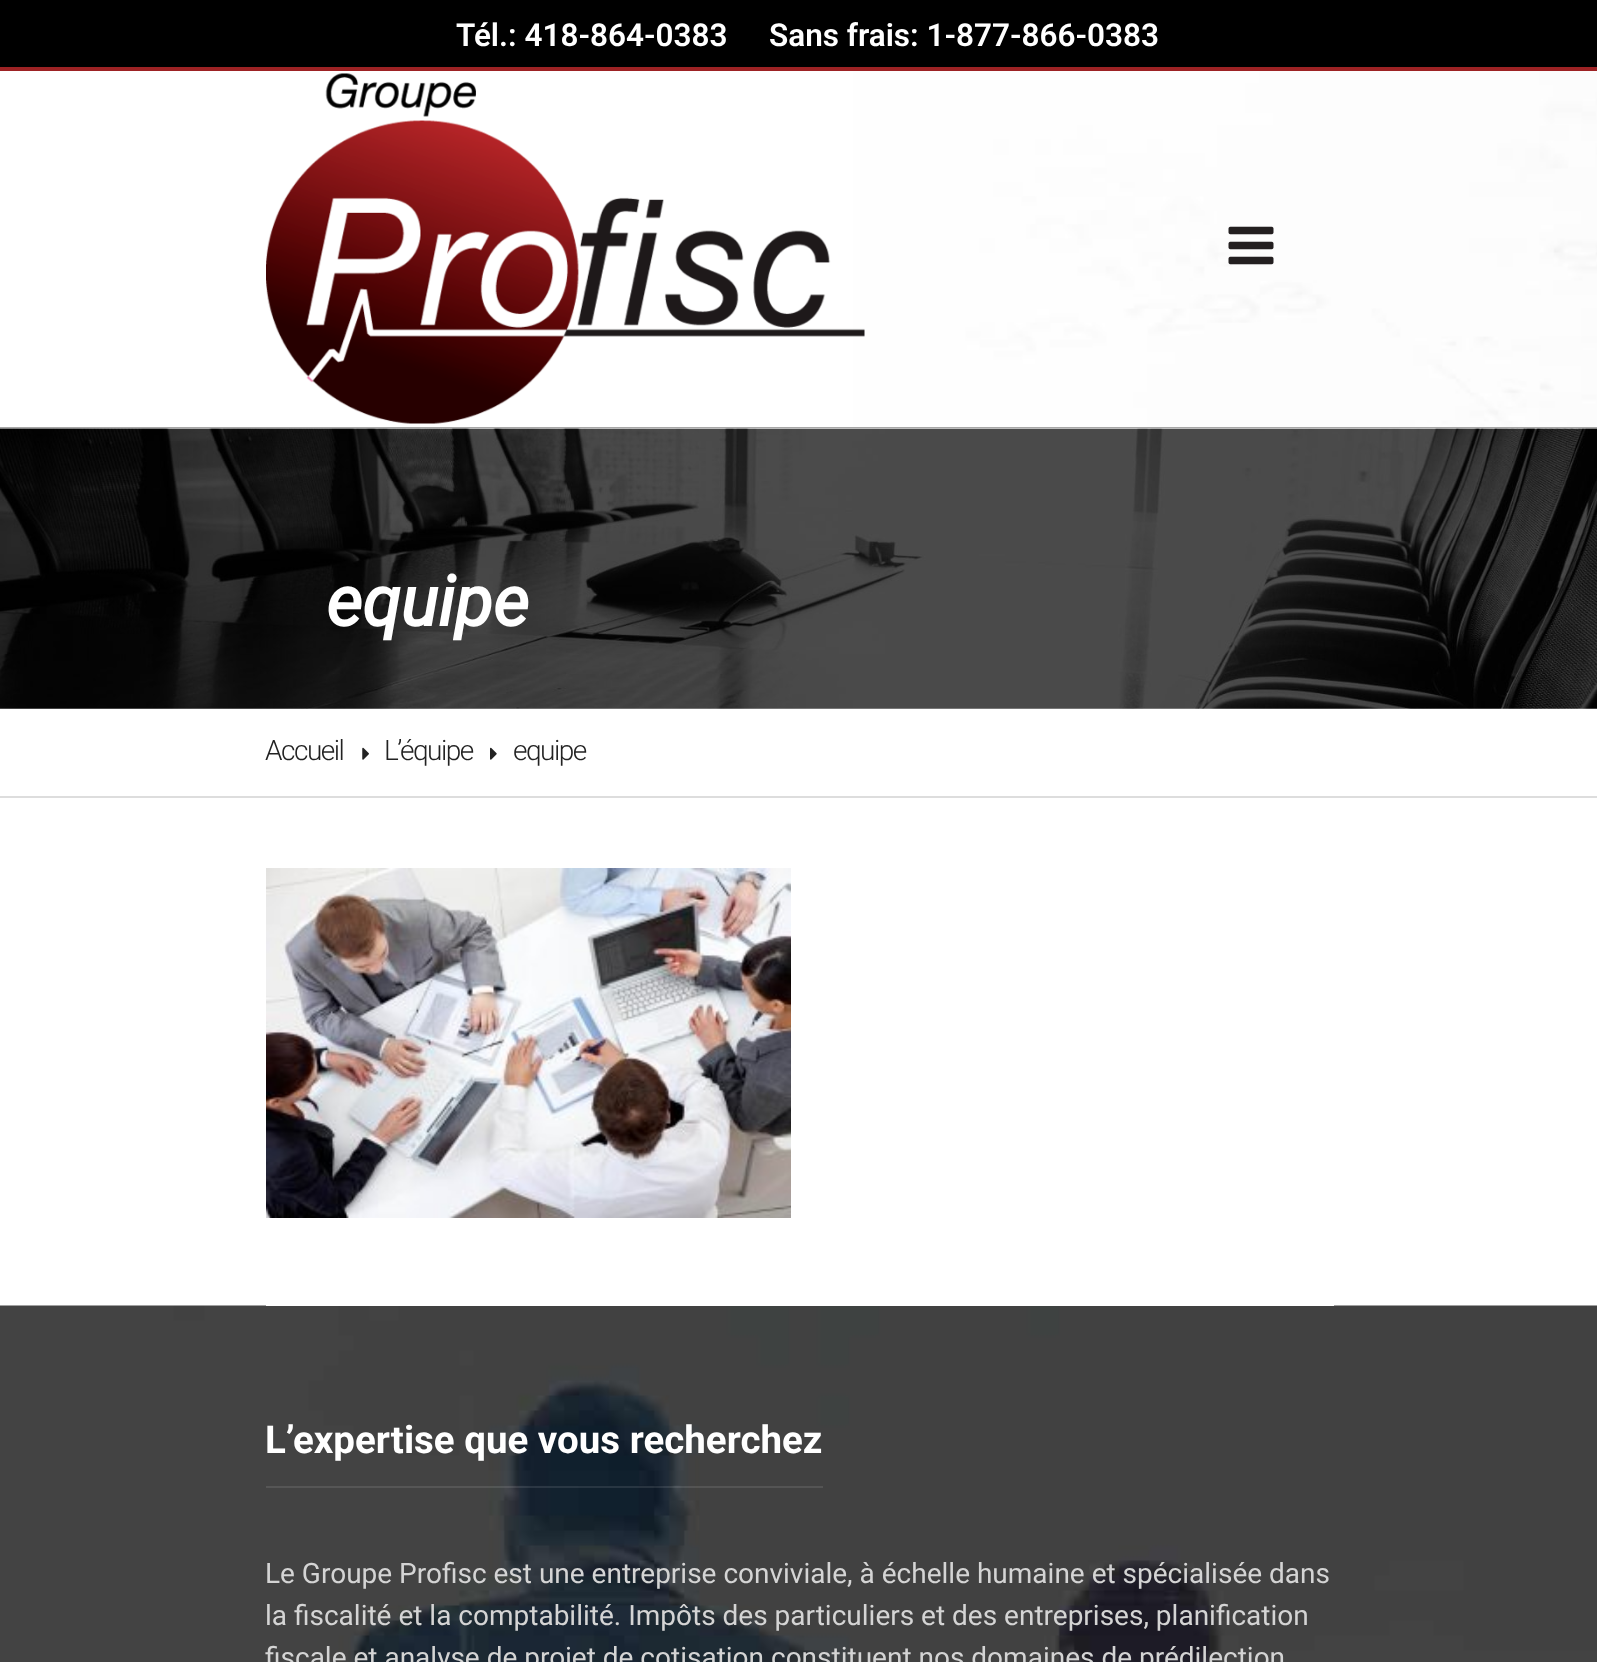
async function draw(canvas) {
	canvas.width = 1597;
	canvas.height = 1662;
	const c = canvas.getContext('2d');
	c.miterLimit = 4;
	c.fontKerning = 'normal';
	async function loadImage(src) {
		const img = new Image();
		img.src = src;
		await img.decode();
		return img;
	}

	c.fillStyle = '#fff';
	c.fillRect(0, 0, 1597, 1662);
	c.fillStyle = '#000';
	c.fillRect(0, 0, 1597, 67);
	c.fillStyle = '#9d2224';
	c.fillRect(0, 67, 1597, 4);
	c.font = '600 31.5px Roboto';
	c.fillStyle = '#fff';
	c.fillText('Tél.: 418-864-0383', 456, 46);
	c.fillText('Sans frais: 1-877-866-0383', 769, 46);
	c.drawImage(await loadImage('img1.png'), 0, 71, 1597, 356);
	c.fillStyle = '#a7a7a7';
	c.fillRect(0, 427, 1597, 2);
	c.drawImage(await loadImage('img2.png'), 266, 73, 599, 351);
	c.drawImage(await loadImage('img3.png'), 1228, 226, 46, 39);
	c.drawImage(await loadImage('img4.png'), 0, 428, 1597, 281);
	c.font = 'italic bold 70px Roboto';
	c.fillStyle = '#fff';
	c.fillText('equipe', 326, 626);
	c.fillStyle = '#ddd';
	c.fillRect(0, 796, 1597, 2);
	c.letterSpacing = '-1.5px';
	c.font = '300 28px Roboto';
	c.fillStyle = '#222';
	c.fillText('Accueil', 265, 760);
	c.drawImage(await loadImage('img5.png'), 362, 747, 7, 13);
	c.fillText('L’équipe', 384, 760);
	c.drawImage(await loadImage('img6.png'), 490, 747, 7, 13);
	c.fillText('equipe', 513, 760);
	c.drawImage(await loadImage('img8.png'), 0, 1305, 1597, 357);
	c.fillStyle = '#fff';
	c.fillRect(266, 1305, 1068, 1);
	c.drawImage(await loadImage('img7.png'), 266, 868, 525, 350);
	c.fillStyle = '#ffffff1a';
	c.fillRect(266, 1486, 557, 2);
	c.letterSpacing = '0px';
	c.font = 'bold 38.5px Roboto';
	c.fillStyle = '#fff';
	c.fillText('L’expertise que vous recherchez', 265, 1453);
	c.font = '28px Roboto';
	c.fillStyle = '#d4d4d4';
	for (const [text, x, y] of [
		['Le Groupe Profisc est une entreprise conviviale, à échelle humaine et spécialisée dans', 265, 1583],
		['la fiscalité et la comptabilité. Impôts des particuliers et des entreprises, planification', 265, 1625],
		['fiscale et analyse de projet de cotisation constituent nos domaines de prédilection', 265, 1667],
	]) {
		c.fillText(text, x, y);
	}
}

draw(document.querySelector('canvas'));
